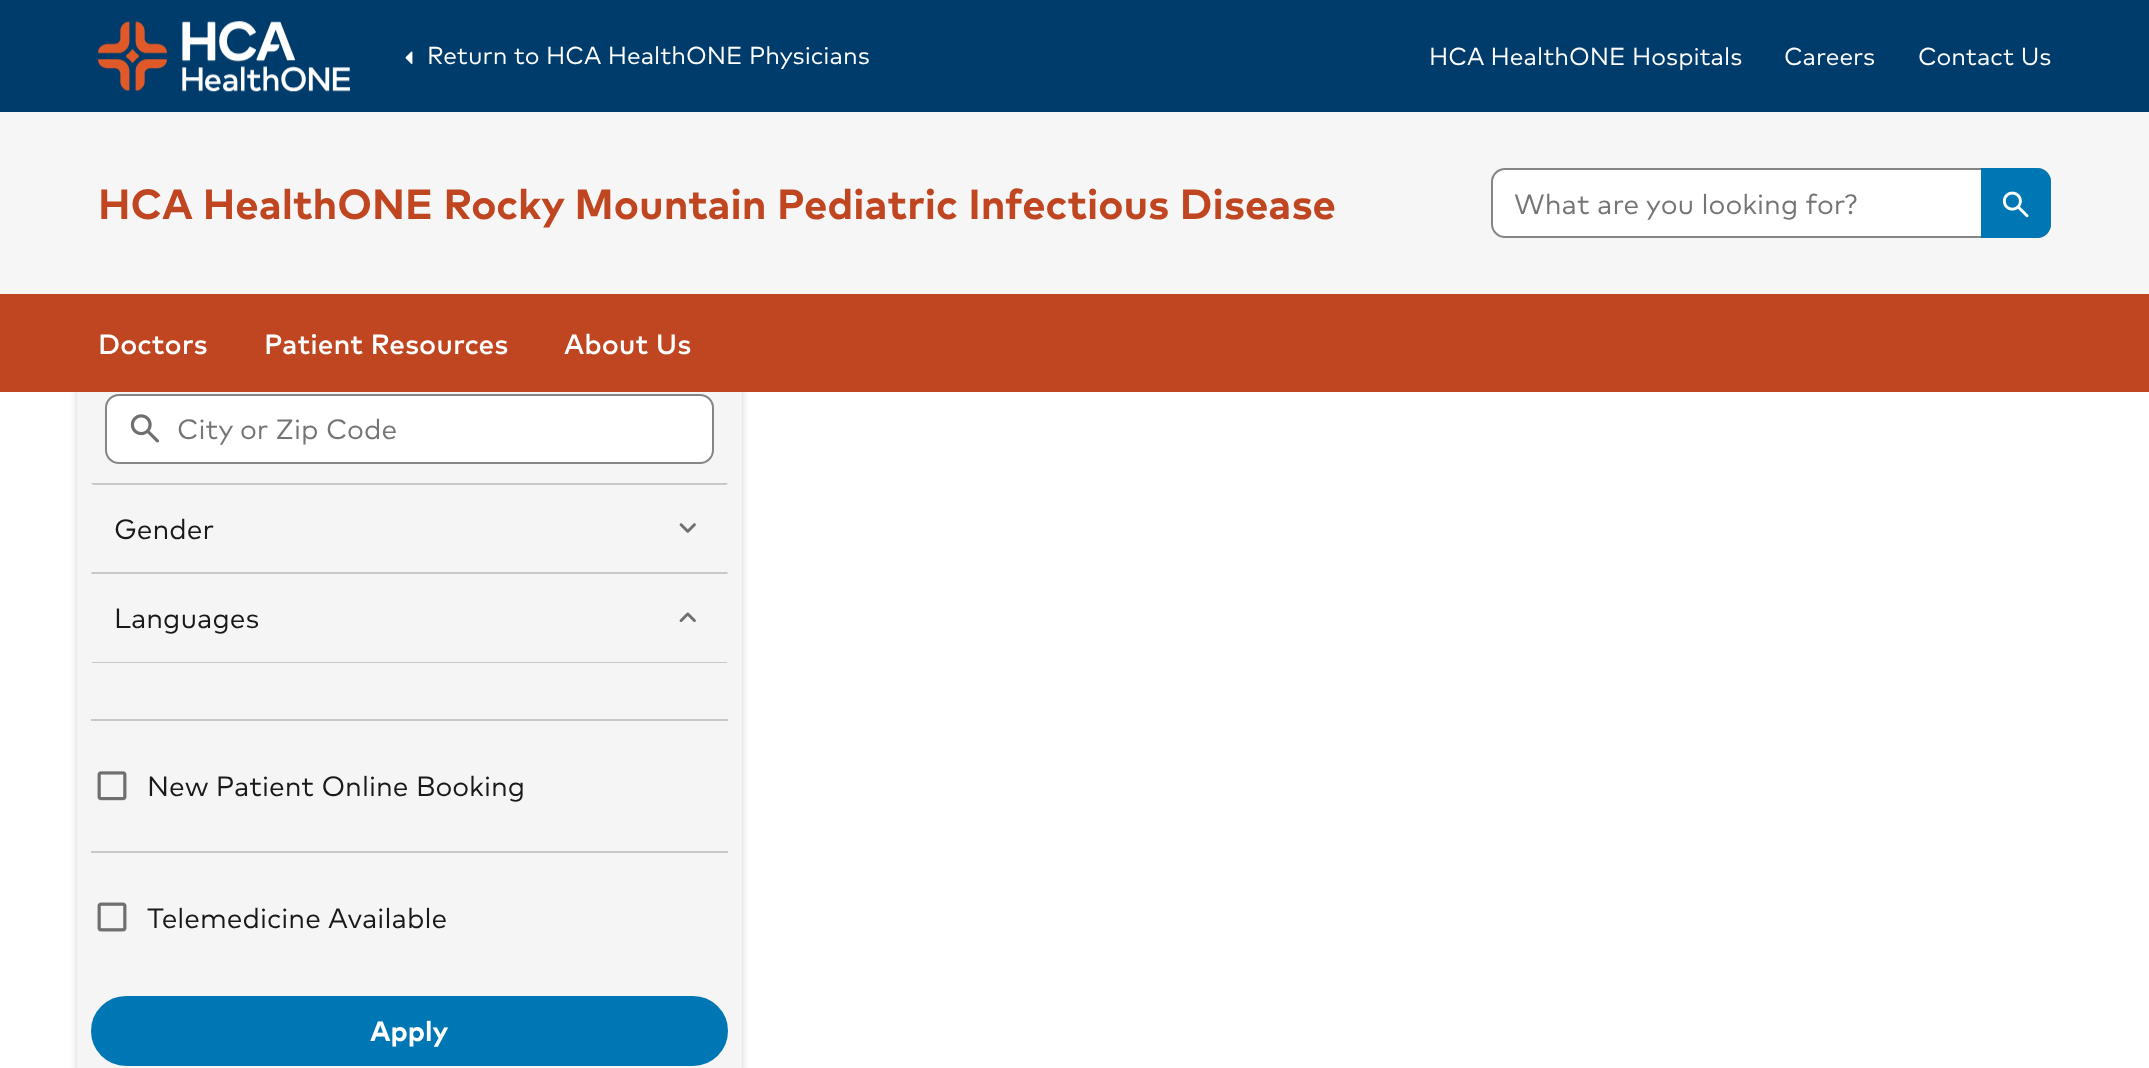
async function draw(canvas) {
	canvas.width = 2149;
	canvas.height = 1068;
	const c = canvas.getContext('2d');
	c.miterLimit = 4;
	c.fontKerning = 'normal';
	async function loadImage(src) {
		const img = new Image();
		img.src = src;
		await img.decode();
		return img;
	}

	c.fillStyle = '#fff';
	c.fillRect(0, 0, 2149, 1068);
	c.fillStyle = '#0f0f0f33';
	c.filter = 'blur(3.5px)';
	c.beginPath();
	c.rect(77, -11, 665, 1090);
	c.fill();
	c.filter = 'none';
	c.fillStyle = '#f6f6f6';
	c.fillRect(0, 112, 2149, 182);
	c.fillStyle = '#003c6b';
	c.fillRect(0, 0, 2149, 112);
	c.drawImage(await loadImage('img1.png'), 98, 21, 252, 71);
	c.drawImage(await loadImage('img2.png'), 405, 51, 8, 13);
	c.font = '24.5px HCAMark';
	c.fillStyle = '#fff';
	for (const [text, x, y] of [
		['Return to HCA HealthONE Physicians', 427, 64],
		['HCA HealthONE Hospitals', 1429, 65],
		['Careers', 1784, 65],
		['Contact Us', 1918, 65],
	]) {
		c.fillText(text, x, y);
	}
	c.font = 'bold 42px HCAMark';
	c.fillStyle = '#bf4620';
	c.fillText('HCA HealthONE Rocky Mountain Pediatric Infectious Disease', 98, 219);
	c.fillStyle = '#fff';
	c.beginPath();
	c.roundRect(1492, 169, 558, 68, 13);
	c.fill();
	c.strokeStyle = '#858585';
	c.lineWidth = 2;
	c.stroke();
	c.font = '28px HCAMark';
	c.fillStyle = '#757575';
	c.fillText('What are you looking for?', 1514, 214);
	c.fillStyle = '#0077b5';
	c.beginPath();
	c.roundRect(1983, 170, 66, 66, [0, 12, 12, 0]);
	c.fill();
	c.strokeStyle = '#0077b5';
	c.lineWidth = 4;
	c.stroke();
	c.drawImage(await loadImage('img3.png'), 2002, 191, 27, 27);
	c.fillStyle = '#bf4620';
	c.fillRect(0, 294, 2149, 98);
	c.font = '500 28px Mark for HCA';
	c.fillStyle = '#fff';
	for (const [text, x, y] of [
		['Doctors', 98, 354],
		['Patient Resources', 264, 354],
		['About Us', 564, 354],
	]) {
		c.fillText(text, x, y);
	}
	c.fillStyle = '#f5f5f5';
	c.fillRect(77, 392, 665, 676);
	c.fillStyle = '#fff';
	c.beginPath();
	c.roundRect(106, 395, 607, 68, 13);
	c.fill();
	c.strokeStyle = '#858585';
	c.lineWidth = 2;
	c.stroke();
	c.drawImage(await loadImage('img4.png'), 130, 414, 29, 29);
	c.font = '28px HCAMark';
	c.fillStyle = '#757575';
	c.fillText('City or Zip Code', 177, 439);
	c.fillStyle = '#c8c8c8';
	c.beginPath();
	c.moveTo(91, 483);
	c.lineTo(728, 483);
	c.lineTo(726, 485);
	c.lineTo(93, 485);
	c.closePath();
	c.fill();
	c.beginPath();
	c.moveTo(728, 574);
	c.lineTo(91, 574);
	c.lineTo(93, 572);
	c.lineTo(726, 572);
	c.closePath();
	c.fill();
	c.fillStyle = '#191919';
	c.fillText('Gender', 114, 539);
	c.drawImage(await loadImage('img5.png'), 679, 523, 17, 10);
	c.fillStyle = '#c8c8c8';
	c.beginPath();
	c.moveTo(91, 572);
	c.lineTo(728, 572);
	c.lineTo(726, 574);
	c.lineTo(93, 574);
	c.closePath();
	c.fill();
	c.beginPath();
	c.moveTo(728, 663);
	c.lineTo(91, 663);
	c.lineTo(93, 662);
	c.lineTo(726, 662);
	c.closePath();
	c.fill();
	c.fillStyle = '#191919';
	c.fillText('Languages', 114, 628);
	c.drawImage(await loadImage('img6.png'), 679, 612, 17, 10);
	c.fillStyle = '#c8c8c8';
	c.fillRect(91, 719, 637, 2);
	c.drawImage(await loadImage('img7.png'), 97, 771, 30, 30);
	c.fillStyle = '#191919';
	c.fillText('New Patient Online Booking', 147, 796);
	c.fillStyle = '#c8c8c8';
	c.fillRect(91, 851, 637, 2);
	c.drawImage(await loadImage('img8.png'), 97, 902, 30, 30);
	c.fillStyle = '#191919';
	c.fillText('Telemedicine Available', 147, 928);
	c.fillStyle = '#0077b5';
	c.beginPath();
	c.roundRect(93, 998, 633, 66, 33);
	c.fill();
	c.strokeStyle = '#0077b5';
	c.lineWidth = 4;
	c.stroke();
	c.font = 'bold 28px HCAMark';
	c.fillStyle = '#fff';
	c.fillText('Apply', 370, 1041);
}

draw(document.querySelector('canvas'));
